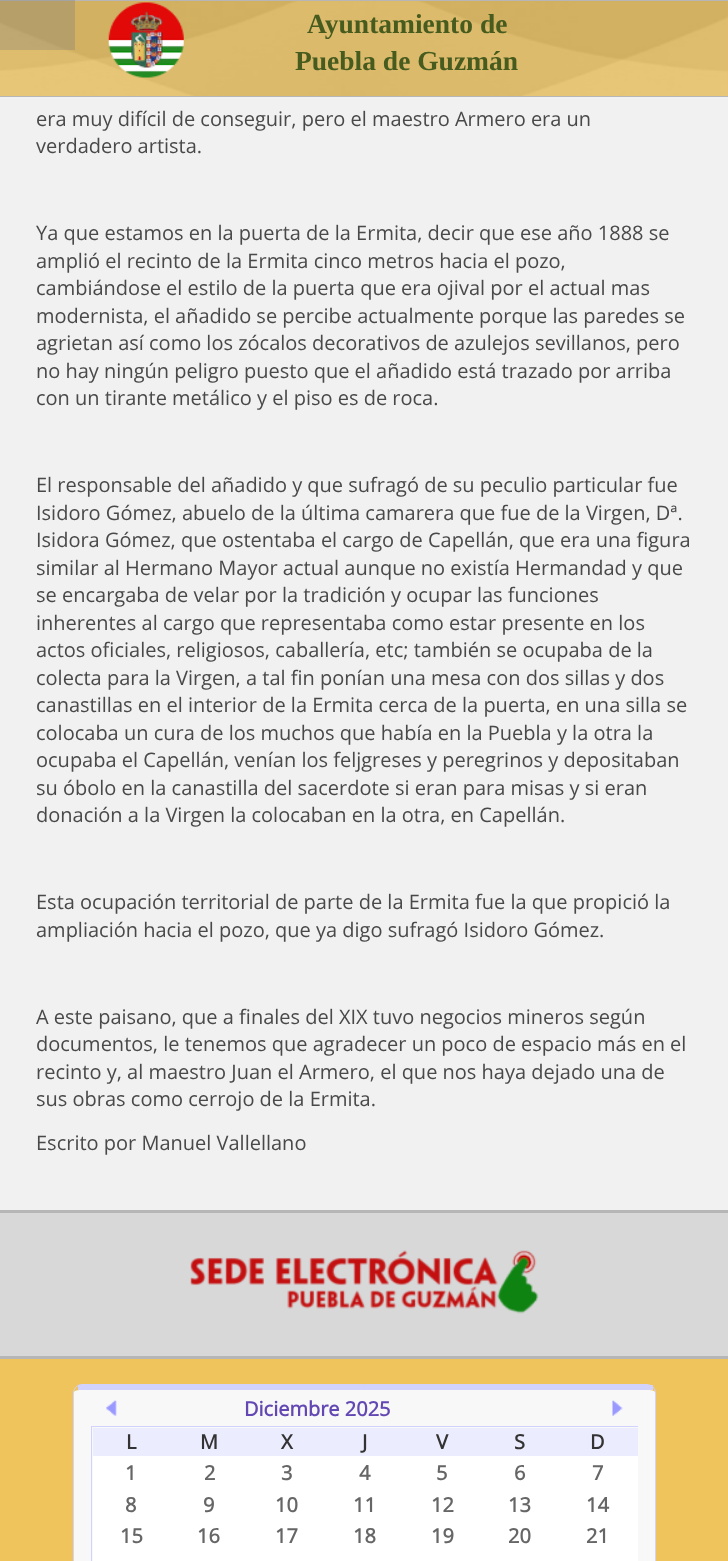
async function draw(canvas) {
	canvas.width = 728;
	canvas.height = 1561;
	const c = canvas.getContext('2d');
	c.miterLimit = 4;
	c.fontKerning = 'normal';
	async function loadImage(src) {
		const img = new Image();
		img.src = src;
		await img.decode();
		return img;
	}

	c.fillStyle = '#f1f1f1';
	c.fillRect(0, 0, 728, 1561);
	c.fillStyle = '#b6b6b6';
	c.fillRect(0, 0, 728, 1);
	c.fillStyle = '#f0c45c';
	c.fillRect(0, 1, 728, 95);
	c.drawImage(await loadImage('img1.png'), 0, 1, 728, 95);
	c.fillStyle = '#7777774d';
	c.fillRect(0, 0, 75, 50);
	c.fillStyle = '#b6b6b6';
	c.fillRect(0, 96, 728, 1);
	c.drawImage(await loadImage('img2.png'), 108, 2, 76, 76);
	c.font = 'bold 27.5px Liberation Serif';
	c.fillStyle = '#465b1d';
	c.fillText('Ayuntamiento de', 307, 33);
	c.fillText('Puebla de Guzmán', 295, 70);
	c.font = '20px Open Sans';
	c.fillStyle = '#494949';
	for (const [text, x, y] of [
		['era muy difícil de conseguir, pero el maestro Armero era un', 36, 126],
		['verdadero artista.', 36, 153],
		['Ya que estamos en la puerta de la Ermita, decir que ese año 1888 se', 36, 240],
		['amplió el recinto de la Ermita cinco metros hacia el pozo,', 36, 268],
		['cambiándose el estilo de la puerta que era ojival por el actual mas', 36, 295],
		['modernista, el añadido se percibe actualmente porque las paredes se', 36, 323],
		['agrietan así como los zócalos decorativos de azulejos sevillanos, pero', 36, 350],
		['no hay ningún peligro puesto que el añadido está trazado por arriba', 36, 378],
		['con un tirante metálico y el piso es de roca.', 36, 405],
		['El responsable del añadido y que sufragó de su peculio particular fue', 36, 492],
		['Isidoro Gómez, abuelo de la última camarera que fue de la Virgen, Dª.', 36, 520],
		['Isidora Gómez, que ostentaba el cargo de Capellán, que era una figura', 36, 547],
		['similar al Hermano Mayor actual aunque no existía Hermandad y que', 36, 575],
		['se encargaba de velar por la tradición y ocupar las funciones', 36, 602],
		['inherentes al cargo que representaba como estar presente en los', 36, 630],
		['actos oficiales, religiosos, caballería, etc; también se ocupaba de la', 36, 657],
		['colecta para la Virgen, a tal fin ponían una mesa con dos sillas y dos', 36, 685],
		['canastillas en el interior de la Ermita cerca de la puerta, en una silla se', 36, 712],
		['colocaba un cura de los muchos que había en la Puebla y la otra la', 36, 740],
		['ocupaba el Capellán, venían los feljgreses y peregrinos y depositaban', 36, 767],
		['su óbolo en la canastilla del sacerdote si eran para misas y si eran', 36, 795],
		['donación a la Virgen la colocaban en la otra, en Capellán.', 36, 822],
		['Esta ocupación territorial de parte de la Ermita fue la que propició la', 36, 909],
		['ampliación hacia el pozo, que ya digo sufragó Isidoro Gómez.', 36, 937],
		['A este paisano, que a finales del XIX tuvo negocios mineros según', 36, 1024],
		['documentos, le tenemos que agradecer un poco de espacio más en el', 36, 1051],
		['recinto y, al maestro Juan el Armero, el que nos haya dejado una de', 36, 1079],
		['sus obras como cerrojo de la Ermita.', 36, 1106],
		['Escrito por Manuel Vallellano', 36, 1150],
	]) {
		c.fillText(text, x, y);
	}
	c.fillStyle = '#b6b6b6';
	c.fillRect(0, 1210, 728, 3);
	c.fillStyle = '#d8d8d8';
	c.fillRect(0, 1213, 728, 143);
	c.drawImage(await loadImage('img3.png'), 190, 1250, 349, 64);
	c.fillStyle = '#b6b6b6';
	c.fillRect(0, 1356, 728, 3);
	c.fillStyle = '#f0c45c';
	c.fillRect(0, 1359, 728, 202);
	c.fillStyle = '#f8f8f8';
	c.beginPath();
	c.moveTo(81, 1390);
	c.lineTo(648, 1390);
	c.bezierCurveTo(652, 1390, 655, 1391, 655, 1392);
	c.lineTo(655, 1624);
	c.lineTo(74, 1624);
	c.lineTo(74, 1392);
	c.bezierCurveTo(74, 1391, 77, 1390, 81, 1390);
	c.closePath();
	c.fill();
	c.beginPath();
	c.moveTo(82, 1384.5);
	c.lineTo(647, 1384.5);
	c.bezierCurveTo(651.5, 1384.5, 655.5, 1388.5, 655.5, 1393);
	c.lineTo(655.5, 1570.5);
	c.lineTo(73.5, 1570.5);
	c.lineTo(73.5, 1393);
	c.bezierCurveTo(73.5, 1388.5, 77.5, 1384.5, 82, 1384.5);
	c.closePath();
	c.strokeStyle = '#d2d2ff';
	c.stroke();
	c.fillStyle = '#d2d2ff';
	c.fillRect(78, 1385, 575, 5);
	c.drawImage(await loadImage('img4.png'), 106, 1400, 11, 16);
	c.font = 'bold 20px Open Sans';
	c.fillStyle = '#6348b4';
	c.fillText('Diciembre 2025', 244, 1416);
	c.drawImage(await loadImage('img5.png'), 612, 1400, 11, 16);
	for (const [x, y, w, h, color] of [
		[91, 1426, 547, 1, '#d2d2ff'],
		[91, 1426, 1, 135, '#d2d2ff'],
		[93, 1428, 545, 28, '#ececff'],
	]) {
		c.fillStyle = color;
		c.fillRect(x, y, w, h);
	}
	c.fillStyle = '#333';
	for (const [text, x, y] of [
		['L', 126, 1449],
		['M', 200, 1449],
		['X', 281, 1449],
		['J', 362, 1449],
		['V', 436, 1449],
		['S', 514, 1449],
		['D', 590, 1449],
	]) {
		c.fillText(text, x, y);
	}
	c.fillStyle = '#fff';
	c.fillRect(93, 1456, 545, 33);
	c.fillStyle = '#666';
	for (const [text, x, y] of [
		['1', 125, 1480],
		['2', 204, 1480],
		['3', 281, 1480],
		['4', 359, 1480],
		['5', 436, 1480],
		['6', 514, 1480],
		['7', 592, 1480],
	]) {
		c.fillText(text, x, y);
	}
	c.fillStyle = '#fff';
	c.fillRect(93, 1489, 545, 31);
	c.fillStyle = '#666';
	for (const [text, x, y] of [
		['8', 125, 1512],
		['9', 203, 1512],
		['10', 275, 1512],
		['11', 353, 1512],
		['12', 431, 1512],
		['13', 508, 1512],
		['14', 586, 1512],
	]) {
		c.fillText(text, x, y);
	}
	c.fillStyle = '#fff';
	c.fillRect(93, 1520, 545, 31);
	c.fillStyle = '#666';
	for (const [text, x, y] of [
		['15', 120, 1543],
		['16', 197, 1543],
		['17', 275, 1543],
		['18', 353, 1543],
		['19', 431, 1543],
		['20', 508, 1543],
		['21', 586, 1543],
	]) {
		c.fillText(text, x, y);
	}
	c.fillStyle = '#fff';
	c.fillRect(93, 1551, 545, 10);
}

draw(document.querySelector('canvas'));
